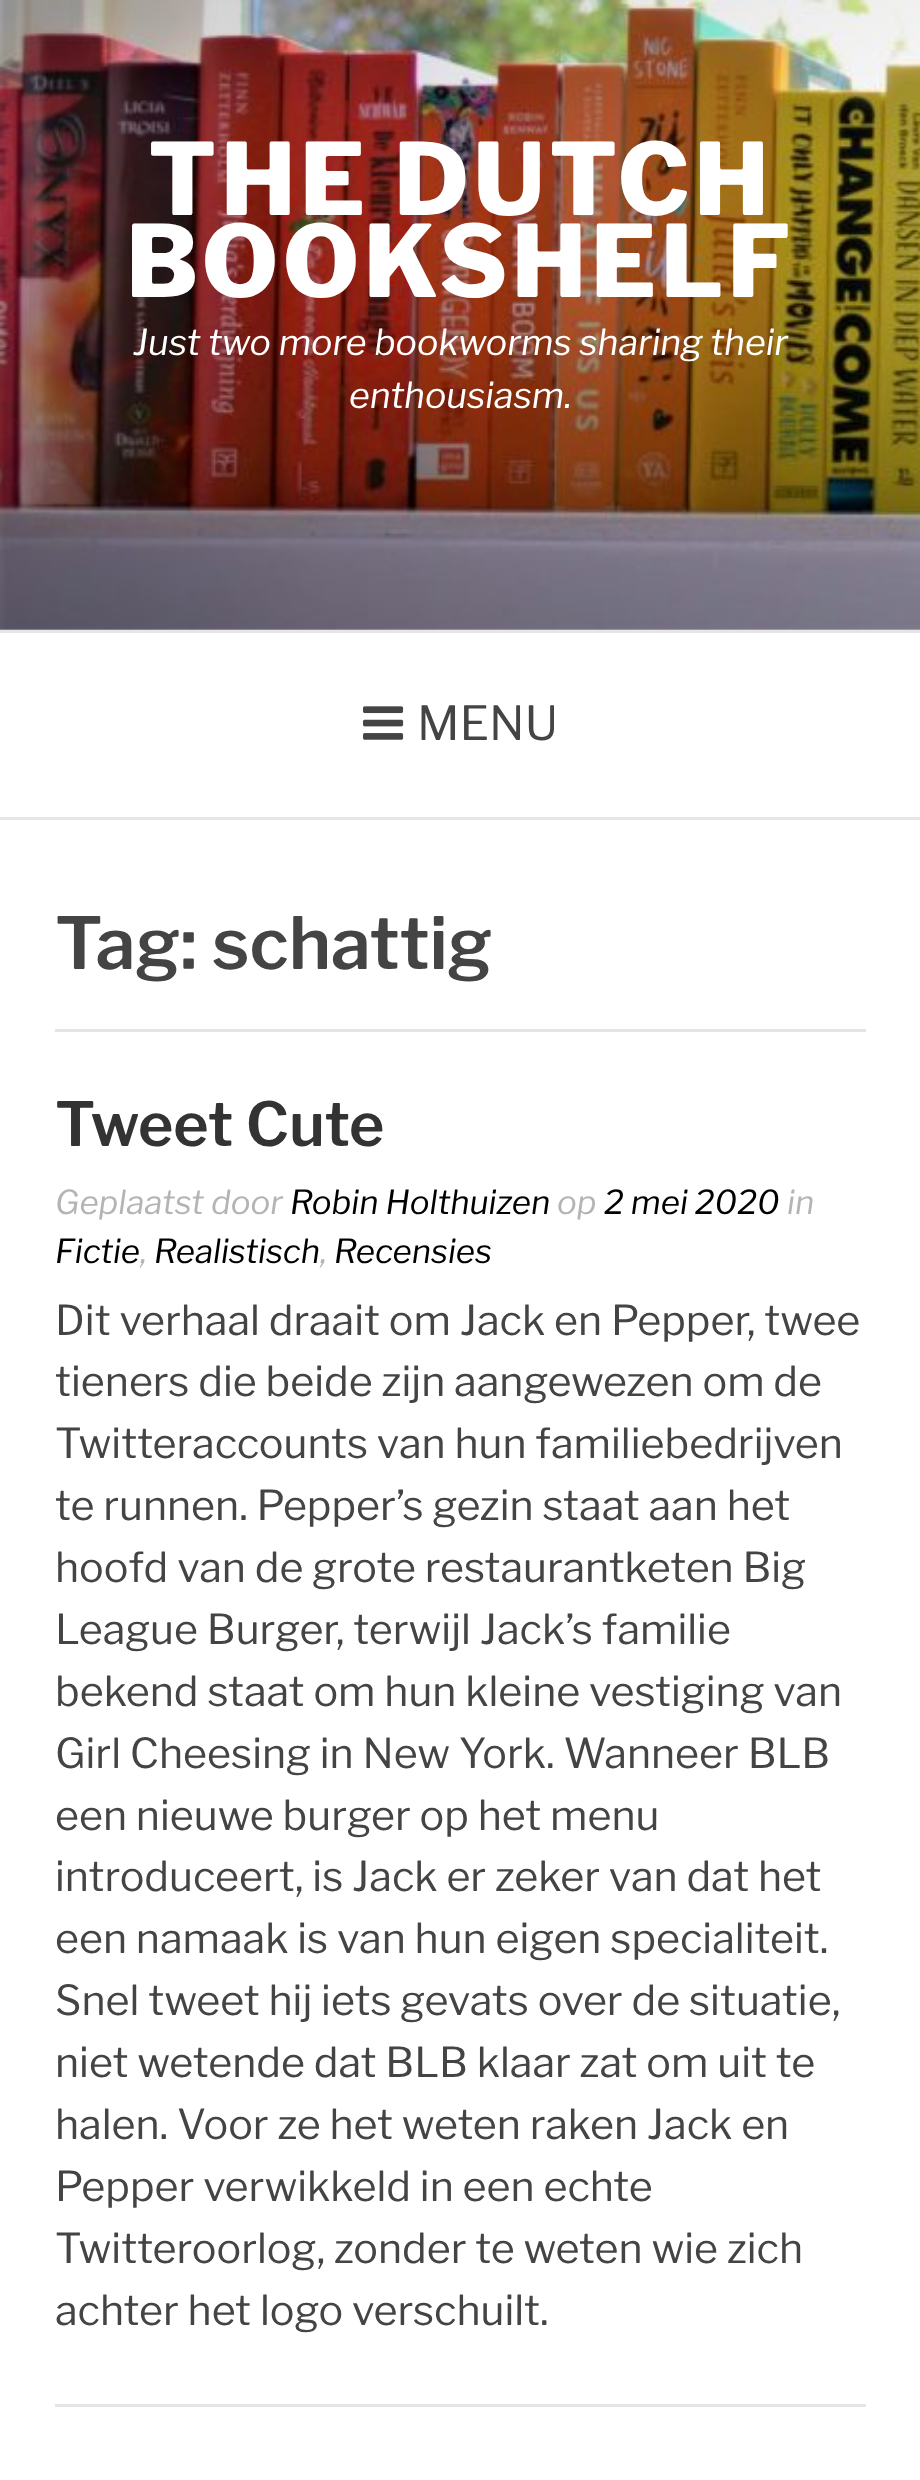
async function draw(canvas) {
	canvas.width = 920;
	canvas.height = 2480;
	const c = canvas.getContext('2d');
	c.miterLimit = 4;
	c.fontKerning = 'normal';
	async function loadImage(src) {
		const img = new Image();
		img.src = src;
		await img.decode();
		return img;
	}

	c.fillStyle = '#fff';
	c.fillRect(0, 0, 920, 2480);
	c.drawImage(await loadImage('img1.png'), 0, 0, 920, 630);
	c.letterSpacing = '4.1px';
	c.font = '800 99px Libre Franklin';
	c.fillText('THE DUTCH', 148, 215);
	c.fillText('BOOKSHELF', 126, 297);
	c.letterSpacing = '0px';
	c.font = 'italic 35.75px Libre Franklin';
	c.fillText('Just two more bookworms sharing their', 133, 355);
	c.fillText('enthousiasm.', 349, 408);
	c.fillStyle = '#e6e6e6';
	c.fillRect(0, 630, 920, 3);
	c.fillRect(0, 817, 920, 3);
	c.drawImage(await loadImage('img2.png'), 363, 706, 41, 34);
	c.font = '47px Libre Franklin';
	c.fillStyle = '#444';
	c.fillText('MENU', 417, 740);
	c.fillStyle = '#e5e5e5';
	c.fillRect(55, 1029, 811, 3);
	c.font = '600 71.5px Libre Franklin';
	c.fillStyle = '#444';
	c.fillText('Tag: schattig', 55, 969);
	c.fillStyle = '#e5e5e5';
	c.fillRect(55, 2404, 811, 3);
	c.font = '600 60.5px Libre Franklin';
	c.fillStyle = '#333';
	c.fillText('Tweet Cute', 55, 1146);
	c.font = 'italic 33px Libre Franklin';
	c.fillStyle = '#b4b4b4';
	c.fillText('Geplaatst door', 55, 1214);
	c.fillStyle = '#000';
	c.fillText('Robin Holthuizen', 290, 1214);
	c.fillStyle = '#b4b4b4';
	c.fillText('op', 557, 1214);
	c.fillStyle = '#000';
	c.fillText('2 mei 2020', 604, 1214);
	c.fillStyle = '#b4b4b4';
	c.fillText('in', 787, 1214);
	c.fillStyle = '#000';
	c.fillText('Fictie', 55, 1263);
	c.fillStyle = '#b4b4b4';
	c.fillText(',', 140, 1263);
	c.fillStyle = '#000';
	c.fillText('Realistisch', 154, 1263);
	c.fillStyle = '#b4b4b4';
	c.fillText(',', 320, 1263);
	c.fillStyle = '#000';
	c.fillText('Recensies', 334, 1263);
	c.font = '41.25px Libre Franklin';
	c.fillStyle = '#444';
	for (const [text, x, y] of [
		['Dit verhaal draait om Jack en Pepper, twee', 55, 1335],
		['tieners die beide zijn aangewezen om de', 55, 1396],
		['Twitteraccounts van hun familiebedrijven', 55, 1458],
		['te runnen. Pepper’s gezin staat aan het', 55, 1520],
		['hoofd van de grote restaurantketen Big', 55, 1582],
		['League Burger, terwijl Jack’s familie', 55, 1644],
		['bekend staat om hun kleine vestiging van', 55, 1706],
		['Girl Cheesing in New York. Wanneer BLB', 55, 1768],
		['een nieuwe burger op het menu', 55, 1830],
		['introduceert, is Jack er zeker van dat het', 55, 1891],
		['een namaak is van hun eigen specialiteit.', 55, 1953],
		['Snel tweet hij iets gevats over de situatie,', 55, 2015],
		['niet wetende dat BLB klaar zat om uit te', 55, 2077],
		['halen. Voor ze het weten raken Jack en', 55, 2139],
		['Pepper verwikkeld in een echte', 55, 2201],
		['Twitteroorlog, zonder te weten wie zich', 55, 2263],
		['achter het logo verschuilt.', 55, 2325],
	]) {
		c.fillText(text, x, y);
	}
}

draw(document.querySelector('canvas'));
